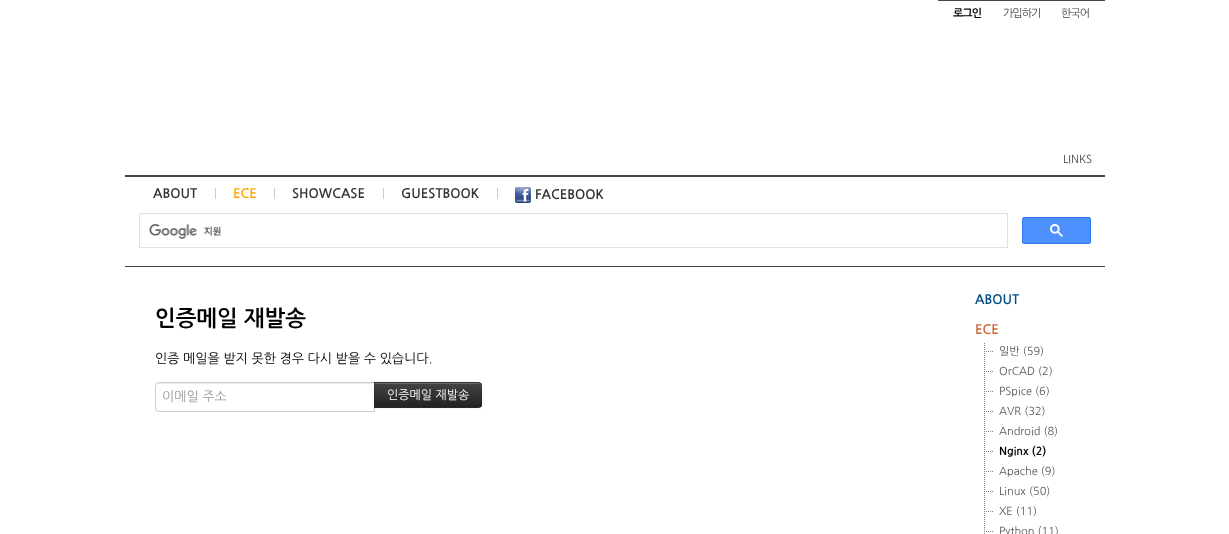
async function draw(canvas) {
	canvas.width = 1229;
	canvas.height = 534;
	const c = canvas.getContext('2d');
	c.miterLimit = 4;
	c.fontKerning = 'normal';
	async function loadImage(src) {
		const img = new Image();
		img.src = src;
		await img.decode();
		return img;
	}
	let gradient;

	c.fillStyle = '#fff';
	c.fillRect(0, 0, 1229, 534);
	c.fillStyle = '#444';
	c.fillRect(938, 0, 167, 1);
	c.letterSpacing = '-1px';
	c.font = 'bold 11px NanumGothic';
	c.fillStyle = '#000';
	c.fillText('로그인', 953, 17);
	c.font = '11px NanumGothic';
	c.fillStyle = '#444';
	c.fillText('가입하기', 1003, 17);
	c.fillText('한국어', 1061, 17);
	c.letterSpacing = '0px';
	c.fillText('LINKS', 1063, 163);
	c.fillRect(125, 175, 980, 2);
	c.fillRect(125, 266, 980, 1);
	c.font = 'bold 13px NanumGothic';
	c.fillStyle = '#333';
	c.fillText('ABOUT', 153, 198);
	c.fillStyle = '#ccc';
	c.fillRect(215, 188, 1, 11);
	c.fillStyle = '#ffa500';
	c.fillText('ECE', 233, 198);
	c.fillStyle = '#ccc';
	c.fillRect(274, 188, 1, 11);
	c.fillStyle = '#333';
	c.fillText('SHOWCASE', 292, 198);
	c.fillStyle = '#ccc';
	c.fillRect(383, 188, 1, 11);
	c.fillStyle = '#333';
	c.fillText('GUESTBOOK', 401, 198);
	c.fillStyle = '#ccc';
	c.fillRect(497, 188, 1, 11);
	c.drawImage(await loadImage('img1.png'), 515, 187, 16, 16);
	c.fillStyle = '#333';
	c.fillText('FACEBOOK', 535, 199);
	c.strokeStyle = '#dfe1e5';
	c.strokeRect(139.5, 213.5, 868, 34);
	c.drawImage(await loadImage('img2.png'), 149, 224, 72, 15);
	c.fillStyle = '#4d90fe';
	c.beginPath();
	c.roundRect(1022.5, 217.5, 68, 26, 1.5);
	c.fill();
	c.strokeStyle = '#3079ed';
	c.stroke();
	c.drawImage(await loadImage('img3.png'), 1050, 224, 13, 13);
	c.font = 'bold 22px NanumGothic';
	c.fillStyle = '#000';
	c.fillText('인증메일 재발송', 155, 326);
	c.font = '13px NanumGothic';
	c.fillText('인증 메일을 받지 못한 경우 다시 받을 수 있습니다.', 155, 363);
	c.fillStyle = '#ececec';
	c.beginPath();
	c.moveTo(159, 384);
	c.lineTo(374, 384);
	c.lineTo(374, 383);
	c.lineTo(159, 383);
	c.bezierCurveTo(157, 383, 156, 384, 156, 386);
	c.lineTo(156, 387);
	c.bezierCurveTo(156, 385, 157, 384, 159, 384);
	c.closePath();
	c.fill();
	c.beginPath();
	c.roundRect(155.5, 382.5, 219, 29, [3.5, 0, 0, 3.5]);
	c.strokeStyle = '#ccc';
	c.stroke();
	c.fillStyle = '#999';
	c.fillText('이메일 주소', 162, 401);
	c.fillStyle = '#0000000d';
	c.filter = 'blur(1px)';
	c.beginPath();
	c.roundRect(374, 383, 108, 26, 4);
	c.fill();
	c.filter = 'none';
	c.fillStyle = '#363636';
	c.beginPath();
	c.roundRect(374, 382, 108, 26, [0, 4, 4, 0]);
	c.fill();
	c.save();
	c.beginPath();
	c.roundRect(374, 382, 108, 26, [0, 4, 4, 0]);
	c.clip();
	gradient = c.createLinearGradient(428, 383, 428, 407);
	gradient.addColorStop(0, '#444');
	gradient.addColorStop(1, '#222');
	c.fillStyle = gradient;
	c.fillRect(374, 383, 108, 24);
	c.restore();
	c.fillStyle = '#696969';
	c.beginPath();
	c.moveTo(375, 384);
	c.lineTo(478, 384);
	c.bezierCurveTo(480, 384, 481, 385, 481, 387);
	c.lineTo(481, 386);
	c.bezierCurveTo(481, 384, 480, 383, 478, 383);
	c.lineTo(375, 383);
	c.closePath();
	c.fill();
	c.fillStyle = '#0000001a';
	c.beginPath();
	c.moveTo(374, 382);
	c.lineTo(375, 383);
	c.lineTo(478, 383);
	c.lineTo(480, 384);
	c.lineTo(481, 383);
	c.lineTo(478, 382);
	c.closePath();
	c.fill();
	c.beginPath();
	c.moveTo(482, 404);
	c.lineTo(482, 386);
	c.bezierCurveTo(482, 385, 481.5, 384, 481, 383);
	c.lineTo(480, 384);
	c.bezierCurveTo(482, 385.5, 481, 393, 481, 395);
	c.bezierCurveTo(481, 397, 482, 404.5, 480, 406);
	c.lineTo(481, 407);
	c.bezierCurveTo(481.5, 406, 482, 405, 482, 404);
	c.closePath();
	c.fill();
	c.fillStyle = '#00000040';
	c.beginPath();
	c.moveTo(478, 408);
	c.lineTo(481, 407);
	c.lineTo(480, 406);
	c.lineTo(478, 407);
	c.lineTo(375, 407);
	c.lineTo(374, 408);
	c.closePath();
	c.fill();
	c.fillStyle = '#0000001a';
	c.beginPath();
	c.moveTo(374, 382);
	c.lineTo(374, 408);
	c.lineTo(375, 407);
	c.lineTo(375, 383);
	c.closePath();
	c.fill();
	c.font = '12px NanumGothic';
	c.fillStyle = '#fff';
	c.fillText('인증메일 재발송', 387, 399);
	c.font = 'bold 13px NanumGothic';
	c.fillStyle = '#004c86';
	c.fillText('ABOUT', 975, 304);
	c.fillStyle = '#c63';
	c.fillText('ECE', 975, 334);
	c.drawImage(await loadImage('img4.png'), 984, 343, 9, 19);
	c.font = '11px NanumGothic';
	c.fillStyle = '#555';
	c.fillText('일반 (59)', 999, 355);
	c.drawImage(await loadImage('img4.png'), 984, 363, 9, 19);
	c.fillText('OrCAD (2)', 999, 375);
	c.drawImage(await loadImage('img4.png'), 984, 383, 9, 19);
	c.fillText('PSpice (6)', 999, 395);
	c.drawImage(await loadImage('img4.png'), 984, 403, 9, 19);
	c.fillText('AVR (32)', 999, 415);
	c.drawImage(await loadImage('img4.png'), 984, 423, 9, 19);
	c.fillText('Android (8)', 999, 435);
	c.drawImage(await loadImage('img4.png'), 984, 443, 9, 19);
	c.font = 'bold 11px NanumGothic';
	c.fillStyle = '#000';
	c.fillText('Nginx (2)', 999, 455);
	c.drawImage(await loadImage('img4.png'), 984, 463, 9, 19);
	c.font = '11px NanumGothic';
	c.fillStyle = '#555';
	c.fillText('Apache (9)', 999, 475);
	c.drawImage(await loadImage('img4.png'), 984, 483, 9, 19);
	c.fillText('Linux (50)', 999, 495);
	c.drawImage(await loadImage('img4.png'), 984, 503, 9, 19);
	c.fillText('XE (11)', 999, 515);
	c.drawImage(await loadImage('img5.png'), 984, 523, 9, 11);
	c.fillText('Python (11)', 999, 535);
}

draw(document.querySelector('canvas'));
